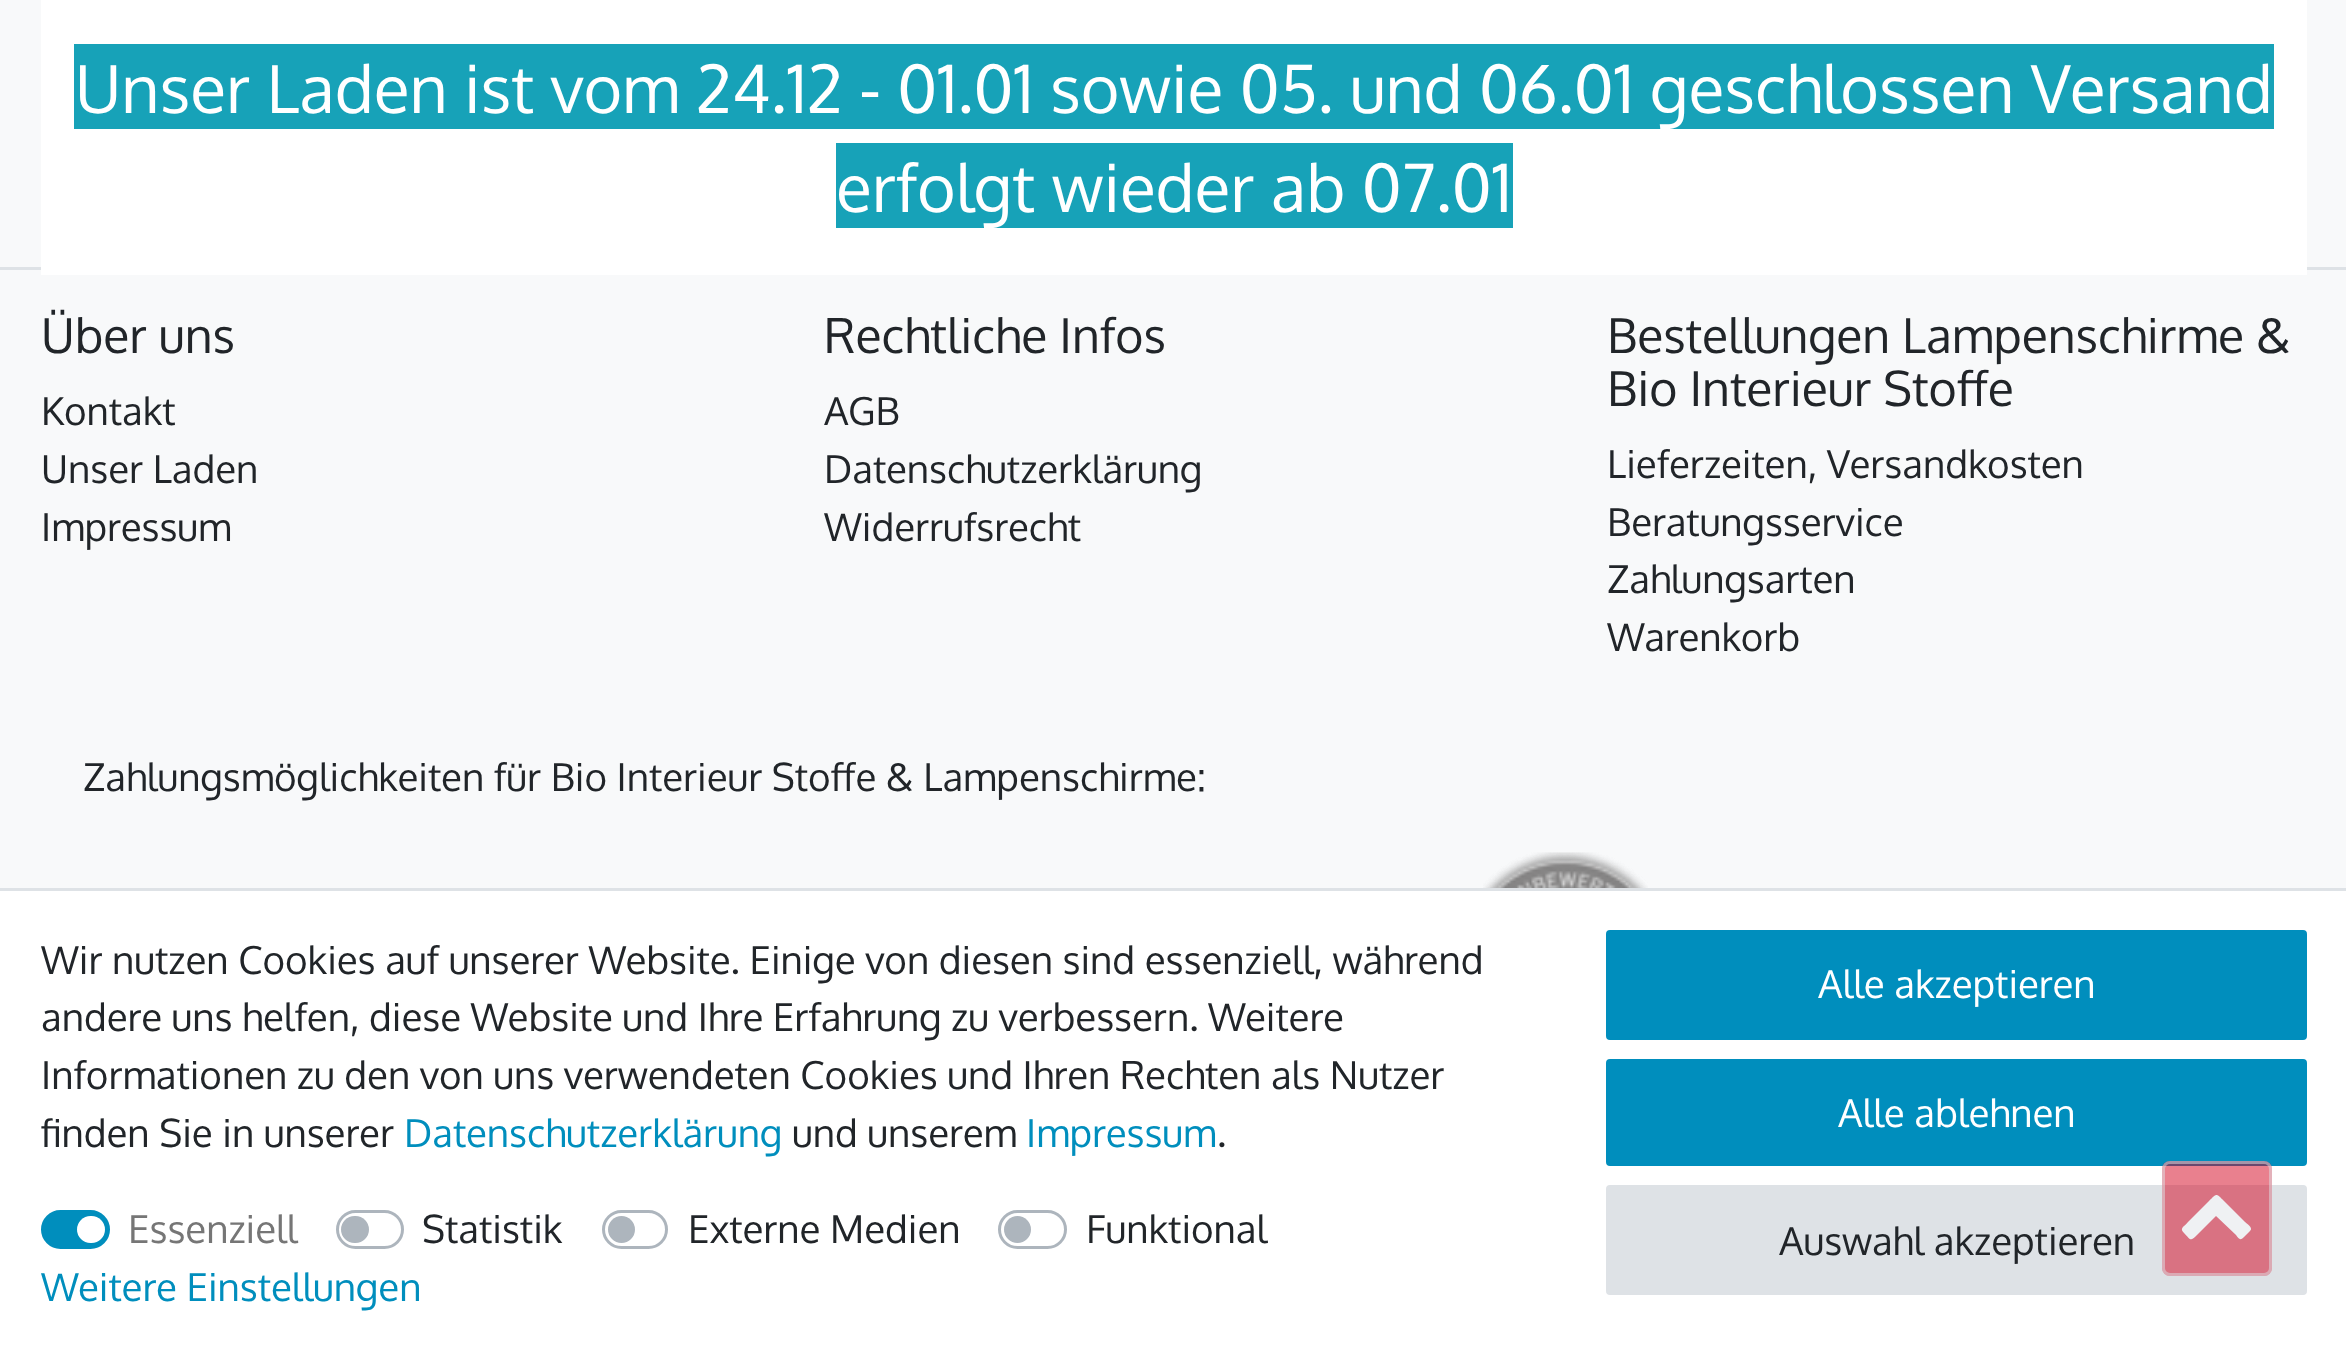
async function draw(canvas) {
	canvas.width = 2346;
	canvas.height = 1353;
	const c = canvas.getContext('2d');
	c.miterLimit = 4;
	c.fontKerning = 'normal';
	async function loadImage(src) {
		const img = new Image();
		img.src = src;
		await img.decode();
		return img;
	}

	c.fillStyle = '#f8f9fa';
	c.fillRect(0, 0, 2346, 1353);
	for (const [x, y, w, h, color] of [
		[0, 267, 2346, 3, '#dee2e6'],
		[41, 0, 2266, 275, '#fff'],
		[74, 44, 2200, 85, '#17a2b8'],
	]) {
		c.fillStyle = color;
		c.fillRect(x, y, w, h);
	}
	c.font = '66px Oxygen';
	c.fillStyle = '#fff';
	c.fillText('Unser Laden ist vom 24.12 - 01.01 sowie 05. und 06.01 geschlossen Versand', 75, 113);
	c.fillStyle = '#17a2b8';
	c.fillRect(836, 143, 677, 85);
	c.fillStyle = '#fff';
	c.fillText('erfolgt wieder ab 07.01', 836, 212);
	c.font = '48.1px Oxygen';
	c.fillStyle = '#212529';
	c.fillText('Über uns', 41, 353);
	c.font = '38.5px Oxygen';
	for (const [text, x, y] of [
		['Kontakt', 41, 425],
		['Unser Laden', 41, 483],
		['Impressum', 41, 541],
	]) {
		c.fillText(text, x, y);
	}
	c.font = '48.1px Oxygen';
	c.fillText('Rechtliche Infos', 824, 353);
	c.font = '38.5px Oxygen';
	for (const [text, x, y] of [
		['AGB', 824, 425],
		['Datenschutzerklärung', 824, 483],
		['Widerrufsrecht', 824, 541],
	]) {
		c.fillText(text, x, y);
	}
	c.font = '48.1px Oxygen';
	c.fillText('Bestellungen Lampenschirme &', 1607, 353);
	c.fillText('Bio Interieur Stoffe', 1607, 406);
	c.font = '38.5px Oxygen';
	for (const [text, x, y] of [
		['Lieferzeiten, Versandkosten', 1607, 478],
		['Beratungsservice', 1607, 536],
		['Zahlungsarten', 1607, 593],
		['Warenkorb', 1607, 651],
		['Zahlungsmöglichkeiten für Bio Interieur Stoffe & Lampenschirme:', 83, 791],
	]) {
		c.fillText(text, x, y);
	}
	c.drawImage(await loadImage('img1.png'), 1483, 852, 165, 36);
	c.drawImage(await loadImage('img2.png'), 1483, 852, 165, 36);
	c.fillStyle = '#fff';
	c.fillRect(0, 891, 2346, 462);
	c.fillStyle = '#dee2e6';
	c.fillRect(0, 888, 2346, 3);
	c.fillStyle = '#212529';
	for (const [text, x, y] of [
		['Wir nutzen Cookies auf unserer Website. Einige von diesen sind essenziell, während', 41, 974],
		['andere uns helfen, diese Website und Ihre Erfahrung zu verbessern. Weitere', 41, 1031],
		['Informationen zu den von uns verwendeten Cookies und Ihren Rechten als Nutzer', 41, 1089],
		['finden Sie in unserer', 41, 1147],
	]) {
		c.fillText(text, x, y);
	}
	c.fillStyle = '#008ebd';
	c.fillText('Datenschutzerklärung', 404, 1147);
	c.fillStyle = '#212529';
	c.fillText('und unserem', 792, 1147);
	c.fillStyle = '#008ebd';
	c.fillText('Impressum', 1026, 1147);
	c.fillStyle = '#212529';
	c.fillText('.', 1217, 1147);
	c.fillStyle = '#008ebd';
	c.beginPath();
	c.roundRect(42.5, 1211.5, 66, 36, 18);
	c.fill();
	c.strokeStyle = '#008ebd';
	c.lineWidth = 3;
	c.stroke();
	c.fillStyle = '#767676';
	c.fillText('Essenziell', 128, 1243);
	c.fillStyle = '#fff';
	c.beginPath();
	c.roundRect(77, 1216, 28, 27, 13.5);
	c.fill();
	c.beginPath();
	c.roundRect(337.5, 1211.5, 65, 36, 18);
	c.strokeStyle = '#adb5bd';
	c.stroke();
	c.fillStyle = '#212529';
	c.fillText('Statistik', 422, 1243);
	c.fillStyle = '#adb5bd';
	c.beginPath();
	c.roundRect(341, 1216, 28, 27, 13.5);
	c.fill();
	c.beginPath();
	c.roundRect(603.5, 1211.5, 63, 36, 18);
	c.stroke();
	c.fillStyle = '#212529';
	c.fillText('Externe Medien', 688, 1243);
	c.fillStyle = '#adb5bd';
	c.beginPath();
	c.arc(621.5, 1229.5, 13.5, 0, 2 * Math.PI);
	c.fill();
	c.beginPath();
	c.roundRect(999.5, 1211.5, 66, 36, 18);
	c.stroke();
	c.fillStyle = '#212529';
	c.fillText('Funktional', 1086, 1243);
	c.fillStyle = '#adb5bd';
	c.beginPath();
	c.arc(1017.5, 1229.5, 13.5, 0, 2 * Math.PI);
	c.fill();
	c.fillStyle = '#008ebd';
	c.fillText('Weitere Einstellungen', 41, 1301);
	c.beginPath();
	c.roundRect(1607.5, 931.5, 698, 107, 2.5);
	c.fill();
	c.strokeStyle = '#008ebd';
	c.stroke();
	c.fillStyle = '#fff';
	c.fillText('Alle akzeptieren', 1818, 998);
	c.fillStyle = '#008ebd';
	c.beginPath();
	c.roundRect(1607.5, 1060.5, 698, 104, 2.5);
	c.fill();
	c.stroke();
	c.fillStyle = '#fff';
	c.fillText('Alle ablehnen', 1838, 1127);
	c.fillStyle = '#dee2e6';
	c.beginPath();
	c.roundRect(1607.5, 1186.5, 698, 107, 2.5);
	c.fill();
	c.strokeStyle = '#dee2e6';
	c.stroke();
	c.fillStyle = '#212529';
	c.fillText('Auswahl akzeptieren', 1779, 1255);
	c.fillStyle = '#d4021d80';
	c.beginPath();
	c.roundRect(2162, 1161, 110, 115, 8);
	c.fill();
	c.beginPath();
	c.roundRect(2163.5, 1162.5, 107, 112, 6.5);
	c.strokeStyle = '#dee2e680';
	c.stroke();
	c.fillStyle = '#eff1f3';
	c.beginPath();
	c.moveTo(2250, 1231);
	c.lineTo(2244, 1237);
	c.bezierCurveTo(2240, 1241, 2239, 1239, 2236, 1235);
	c.lineTo(2216, 1216);
	c.lineTo(2197, 1235);
	c.bezierCurveTo(2190, 1242, 2191, 1240, 2184, 1233);
	c.bezierCurveTo(2179, 1228, 2184, 1227, 2188, 1222);
	c.lineTo(2209, 1201);
	c.bezierCurveTo(2217, 1193, 2216, 1193, 2224, 1201);
	c.lineTo(2245, 1222);
	c.bezierCurveTo(2246, 1223, 2254, 1228, 2250, 1231);
	c.closePath();
	c.fill();
}

draw(document.querySelector('canvas'));
